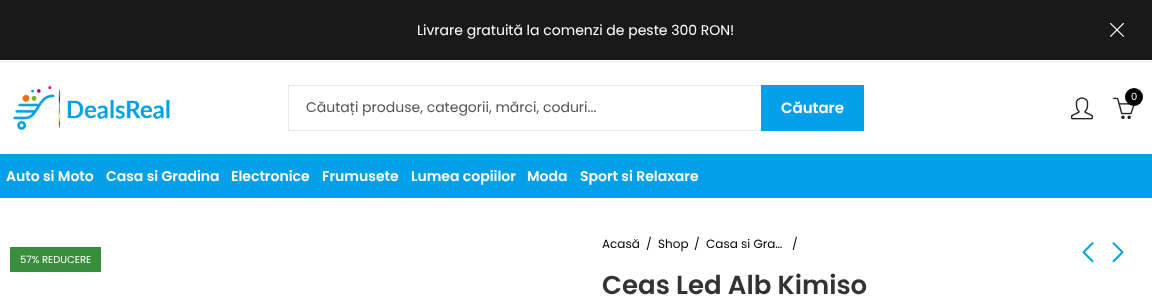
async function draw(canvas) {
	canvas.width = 1152;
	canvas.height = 307;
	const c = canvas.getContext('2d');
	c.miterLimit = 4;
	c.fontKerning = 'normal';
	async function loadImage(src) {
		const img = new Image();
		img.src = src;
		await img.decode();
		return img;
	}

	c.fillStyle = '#fff';
	c.fillRect(0, 0, 1152, 307);
	c.fillStyle = '#191919';
	c.fillRect(0, 0, 1152, 60);
	c.font = '14px Poppins';
	c.fillStyle = '#fff';
	c.fillText('Livrare gratuită la comenzi de peste 300 RON!', 417, 35);
	c.drawImage(await loadImage('img1.png'), 1110, 22, 14, 15);
	c.fillStyle = '#e9e9e9';
	c.fillRect(0, 61, 1152, 1);
	c.drawImage(await loadImage('img2.png'), 13, 85, 157, 46);
	c.drawImage(await loadImage('img3.png'), 1113, 97, 22, 22);
	c.fillStyle = '#000';
	c.beginPath();
	c.arc(1134, 97, 9, 0, 2 * Math.PI);
	c.fill();
	c.font = '10px Poppins';
	c.fillStyle = '#fff';
	c.fillText('0', 1131, 100);
	c.drawImage(await loadImage('img4.png'), 1071, 97, 22, 23);
	c.strokeStyle = '#e9e9e9';
	c.strokeRect(288.5, 85.5, 575, 45);
	c.font = '14px Poppins';
	c.fillStyle = '#545454';
	c.fillText('Căutați produse, categorii, mărci, coduri...', 306, 112);
	c.fillStyle = '#01a0e9';
	c.fillRect(761, 85, 103, 46);
	c.font = '600 15px Poppins';
	c.fillStyle = '#fff';
	c.fillText('Căutare', 781, 113);
	c.fillStyle = '#01a0e9';
	c.fillRect(0, 154, 1152, 44);
	c.font = '600 14px Poppins';
	c.fillStyle = '#fff';
	for (const [text, x, y] of [
		['Auto si Moto', 6, 181],
		['Casa si Gradina', 106, 181],
		['Electronice', 231, 181],
		['Frumusete', 322, 181],
		['Lumea copiilor', 411, 181],
		['Moda', 527, 181],
		['Sport si Relaxare', 580, 181],
	]) {
		c.fillText(text, x, y);
	}
	c.fillStyle = '#388e3c';
	c.fillRect(10, 247, 91, 25);
	c.font = '10px Poppins';
	c.fillStyle = '#fff';
	c.fillText('57% REDUCERE', 20, 263);
	c.font = '12px Poppins';
	c.fillStyle = '#000';
	for (const [text, x, y] of [
		['Acasă', 602, 248],
		['/', 646, 248],
		['Shop', 658, 248],
		['/', 694, 248],
		['Casa si Gra…', 706, 248],
		['/', 792, 248],
	]) {
		c.fillText(text, x, y);
	}
	c.drawImage(await loadImage('img5.png'), 1082, 242, 12, 21);
	c.drawImage(await loadImage('img6.png'), 1112, 242, 12, 21);
	c.font = '600 26px Poppins';
	c.fillStyle = '#333';
	c.fillText('Ceas Led Alb Kimiso', 602, 294);
}

draw(document.querySelector('canvas'));
